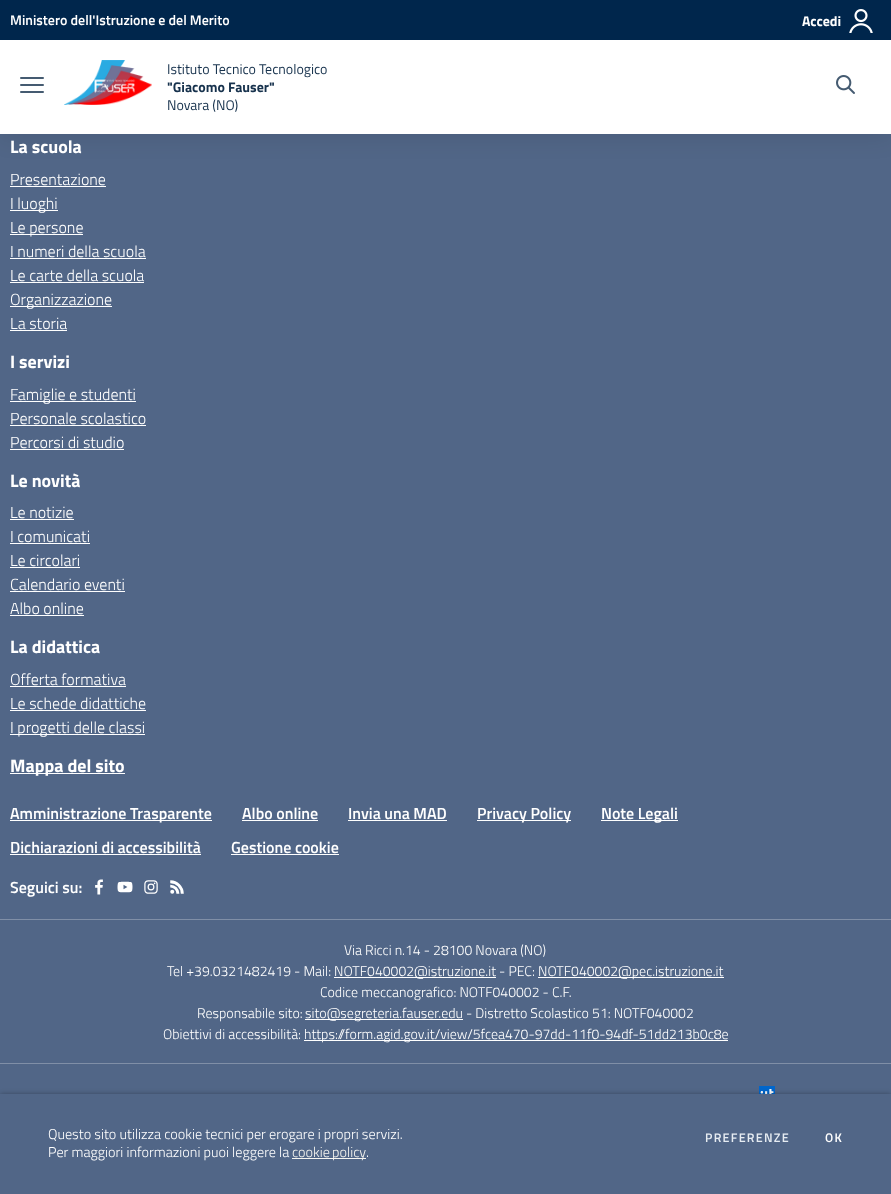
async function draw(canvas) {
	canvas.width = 891;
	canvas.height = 1194;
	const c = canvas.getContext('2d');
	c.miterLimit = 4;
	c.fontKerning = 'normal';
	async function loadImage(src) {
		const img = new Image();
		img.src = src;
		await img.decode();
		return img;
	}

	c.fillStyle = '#516687';
	c.fillRect(0, 0, 891, 1194);
	c.fillStyle = '#0000001a';
	c.filter = 'blur(12.5px)';
	c.beginPath();
	c.rect(0, 2, 891, 134);
	c.fill();
	c.filter = 'none';
	c.fillStyle = '#fff';
	c.fillRect(0, 40, 891, 94);
	c.fillStyle = '#00264c';
	c.fillRect(0, 0, 891, 40);
	c.font = '600 14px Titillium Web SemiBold';
	c.fillStyle = '#fff';
	c.fillText('Ministero dell\'Istruzione e del Merito', 10, 25);
	c.font = 'bold 14px Titillium Web';
	c.fillText('Accedi', 802, 26);
	c.drawImage(await loadImage('img1.png'), 849, 9, 24, 24);
	c.fillStyle = '#455b71';
	c.beginPath();
	c.roundRect(20, 84, 24, 2, 1);
	c.fill();
	c.beginPath();
	c.roundRect(20, 77, 24, 2, 1);
	c.fill();
	c.beginPath();
	c.roundRect(20, 91, 24, 2, 1);
	c.fill();
	c.drawImage(await loadImage('img2.png'), 64, 60, 88, 45);
	c.font = '14px Titillium Web';
	c.fillStyle = '#17324d';
	c.fillText('Istituto Tecnico Tecnologico', 167, 74);
	c.font = 'bold 14px Titillium Web';
	c.fillText('"Giacomo Fauser"', 167, 92);
	c.font = '14px Titillium Web';
	c.fillText('Novara (NO)', 167, 110);
	c.drawImage(await loadImage('img3.png'), 836, 75, 19, 19);
	c.font = 'bold 18px Titillium Web';
	c.fillStyle = '#fff';
	c.fillText('La scuola', 10, 153);
	c.font = '300 16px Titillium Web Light';
	c.fillText('Presentazione', 10, 185);
	c.fillRect(10, 186, 96, 1);
	c.fillRect(10, 210, 48, 1);
	c.fillText('I luoghi', 10, 209);
	c.fillRect(10, 234, 73, 1);
	c.fillText('Le persone', 10, 233);
	c.fillText('I numeri della scuola', 10, 257);
	c.fillRect(10, 258, 136, 1);
	c.fillText('Le carte della scuola', 10, 281);
	c.fillRect(10, 282, 134, 1);
	c.fillRect(10, 306, 102, 1);
	c.fillText('Organizzazione', 10, 305);
	c.fillText('La storia', 10, 329);
	c.fillRect(10, 330, 57, 1);
	c.font = 'bold 18px Titillium Web';
	c.fillText('I servizi', 10, 368);
	c.fillRect(10, 401, 126, 1);
	c.font = '300 16px Titillium Web Light';
	c.fillText('Famiglie e studenti', 10, 400);
	c.fillText('Personale scolastico', 10, 424);
	c.fillRect(10, 425, 136, 1);
	c.fillText('Percorsi di studio', 10, 448);
	c.fillRect(10, 449, 114, 1);
	c.font = 'bold 18px Titillium Web';
	c.fillText('Le novità', 10, 487);
	c.font = '300 16px Titillium Web Light';
	c.fillText('Le notizie', 10, 518);
	c.fillRect(10, 519, 64, 1);
	c.fillText('I comunicati', 10, 542);
	c.fillRect(10, 543, 80, 1);
	c.fillText('Le circolari', 10, 566);
	c.fillRect(10, 567, 70, 1);
	c.fillText('Calendario eventi', 10, 590);
	c.fillRect(10, 591, 115, 1);
	c.fillText('Albo online', 10, 614);
	c.fillRect(10, 615, 74, 1);
	c.font = 'bold 18px Titillium Web';
	c.fillText('La didattica', 10, 653);
	c.font = '300 16px Titillium Web Light';
	c.fillText('Offerta formativa', 10, 685);
	c.fillRect(10, 686, 116, 1);
	c.fillText('Le schede didattiche', 10, 709);
	c.fillRect(10, 710, 136, 1);
	c.fillRect(10, 734, 135, 1);
	c.fillText('I progetti delle classi', 10, 733);
	c.fillRect(10, 773, 115, 1);
	c.font = 'bold 18px Titillium Web';
	c.fillText('Mappa del sito', 10, 772);
	c.fillRect(10, 820, 202, 1);
	c.font = '600 16px Titillium Web SemiBold';
	c.fillText('Amministrazione Trasparente', 10, 819);
	c.fillText('Albo online', 242, 819);
	c.fillRect(242, 820, 76, 1);
	c.fillText('Invia una MAD', 348, 819);
	c.fillRect(348, 820, 99, 1);
	c.fillRect(477, 820, 94, 1);
	c.fillText('Privacy Policy', 477, 819);
	c.fillRect(601, 820, 77, 1);
	c.fillText('Note Legali', 601, 819);
	c.fillText('Dichiarazioni di accessibilità', 10, 853);
	c.fillRect(10, 854, 191, 1);
	c.fillText('Gestione cookie', 231, 853);
	c.fillRect(231, 854, 108, 1);
	c.fillText('Seguici su:', 10, 893);
	c.drawImage(await loadImage('img4.png'), 95, 879, 8, 16);
	c.drawImage(await loadImage('img5.png'), 117, 881, 16, 12);
	c.drawImage(await loadImage('img6.png'), 144, 880, 14, 14);
	c.drawImage(await loadImage('img7.png'), 170, 880, 14, 14);
	c.fillStyle = '#808fa7';
	c.fillRect(0, 919, 891, 1);
	c.font = '300 14px Titillium Web Light';
	c.fillStyle = '#fff';
	c.fillText('Via Ricci n.14 - 28100 Novara (NO)', 344, 955);
	c.fillText('Tel +39.0321482419 - Mail:', 167, 976);
	c.fillRect(334, 977, 162, 1);
	c.fillText('NOTF040002@istruzione.it - PEC:', 334, 976);
	c.fillRect(538, 977, 186, 1);
	for (const [text, x, y] of [
		['NOTF040002@pec.istruzione.it', 538, 976],
		['Codice meccanografico: NOTF040002 - C.F.', 320, 997],
		['Responsabile sito:', 197, 1018],
	]) {
		c.fillText(text, x, y);
	}
	c.fillRect(305, 1019, 158, 1);
	c.fillText('sito@segreteria.fauser.edu - Distretto Scolastico 51: NOTF040002', 305, 1018);
	c.fillText('Obiettivi di accessibilità:', 163, 1039);
	c.fillRect(304, 1040, 424, 1);
	c.fillText('https://form.agid.gov.it/view/5fcea470-97dd-11f0-94df-51dd213b0c8e', 304, 1039);
	c.fillStyle = '#808fa7';
	c.fillRect(0, 1063, 891, 1);
	c.fillStyle = '#06c';
	c.fillRect(759, 1086, 16, 8);
	c.drawImage(await loadImage('img8.png'), 760, 1089, 14, 5);
	c.fillStyle = '#0000004d';
	c.filter = 'blur(2.5px)';
	c.beginPath();
	c.rect(0, 1094, 891, 100);
	c.fill();
	c.filter = 'none';
	c.fillStyle = '#516687';
	c.fillRect(0, 1094, 891, 100);
	c.font = '300 14.25px Titillium Web Light';
	c.fillStyle = '#fff';
	c.fillText('Questo sito utilizza cookie tecnici per erogare i propri servizi.', 48, 1139);
	c.fillText('Per maggiori informazioni puoi leggere la', 48, 1157);
	c.fillStyle = '#f5f5f0';
	c.fillRect(292, 1158, 74, 1);
	c.wordSpacing = '-1px';
	c.fillText('cookie policy', 292, 1157);
	c.wordSpacing = '0px';
	c.fillStyle = '#fff';
	c.fillText('.', 366, 1157);
	c.letterSpacing = '1.25px';
	c.font = '600 12.5px Titillium Web SemiBold';
	c.fillStyle = '#e6ecf2';
	c.fillText('PREFERENZE', 705, 1142);
	c.fillStyle = '#fff';
	c.fillText('OK', 825, 1142);
}

draw(document.querySelector('canvas'));
